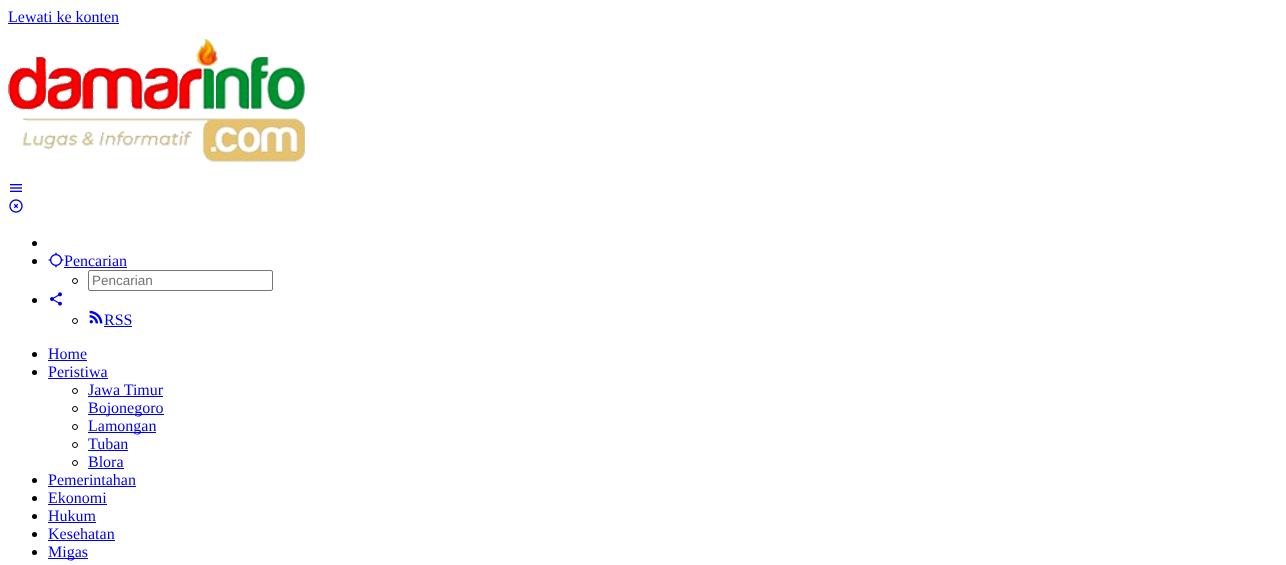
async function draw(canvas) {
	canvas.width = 1286;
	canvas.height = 565;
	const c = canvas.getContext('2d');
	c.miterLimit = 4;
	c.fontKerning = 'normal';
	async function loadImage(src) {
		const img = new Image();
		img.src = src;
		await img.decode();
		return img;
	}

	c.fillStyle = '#fff';
	c.fillRect(0, 0, 1286, 565);
	c.font = '16px Liberation Serif';
	c.fillStyle = '#00e';
	c.fillText('Lewati ke konten', 8, 22);
	c.fillRect(8, 23, 111, 1);
	c.drawImage(await loadImage('img1.png'), 8, 39, 297, 123);
	c.drawImage(await loadImage('img2.png'), 10, 184, 12, 8);
	c.drawImage(await loadImage('img3.png'), 9, 199, 14, 14);
	c.fillStyle = '#000';
	c.beginPath();
	c.arc(34.5, 243.5, 2.5, 0, 2 * Math.PI);
	c.fill();
	c.beginPath();
	c.arc(34.5, 261.5, 2.5, 0, 2 * Math.PI);
	c.fill();
	c.drawImage(await loadImage('img4.png'), 48, 252, 16, 16);
	c.fillStyle = '#00e';
	c.fillText('Pencarian', 64, 266);
	c.fillRect(64, 267, 63, 1);
	c.beginPath();
	c.arc(75, 281, 2.5, 0, 2 * Math.PI);
	c.strokeStyle = '#000';
	c.stroke();
	c.beginPath();
	c.roundRect(88.5, 270.5, 184, 20, 1.5);
	c.strokeStyle = '#767676';
	c.stroke();
	c.font = '13.5px Liberation Sans';
	c.fillStyle = '#757575';
	c.fillText('Pencarian', 92, 285);
	c.fillStyle = '#000';
	c.beginPath();
	c.arc(34.5, 300.5, 2.5, 0, 2 * Math.PI);
	c.fill();
	c.drawImage(await loadImage('img5.png'), 50, 292, 12, 14);
	c.beginPath();
	c.arc(75, 321, 2.5, 0, 2 * Math.PI);
	c.strokeStyle = '#000';
	c.stroke();
	c.drawImage(await loadImage('img6.png'), 89, 310, 14, 14);
	c.font = '16px Liberation Serif';
	c.fillStyle = '#00e';
	c.fillText('RSS', 104, 325);
	c.fillRect(104, 326, 28, 1);
	c.fillStyle = '#000';
	c.beginPath();
	c.arc(34.5, 354.5, 2.5, 0, 2 * Math.PI);
	c.fill();
	c.fillStyle = '#00e';
	c.fillText('Home', 48, 359);
	c.fillRect(48, 360, 39, 1);
	c.fillStyle = '#000';
	c.beginPath();
	c.arc(34.5, 372.5, 2.5, 0, 2 * Math.PI);
	c.fill();
	c.fillStyle = '#00e';
	c.fillText('Peristiwa', 48, 377);
	c.fillRect(48, 378, 60, 1);
	c.beginPath();
	c.arc(75, 391, 2.5, 0, 2 * Math.PI);
	c.stroke();
	c.fillText('Jawa Timur', 88, 395);
	c.fillRect(88, 396, 75, 1);
	c.beginPath();
	c.arc(75, 409, 2.5, 0, 2 * Math.PI);
	c.stroke();
	c.fillRect(88, 414, 76, 1);
	c.fillText('Bojonegoro', 88, 413);
	c.beginPath();
	c.arc(75, 427, 2.5, 0, 2 * Math.PI);
	c.stroke();
	c.fillRect(88, 432, 68, 1);
	c.fillText('Lamongan', 88, 431);
	c.beginPath();
	c.arc(75, 445, 2.5, 0, 2 * Math.PI);
	c.stroke();
	c.fillText('Tuban', 88, 449);
	c.fillRect(88, 450, 40, 1);
	c.beginPath();
	c.arc(75, 463, 2.5, 0, 2 * Math.PI);
	c.stroke();
	c.fillText('Blora', 88, 467);
	c.fillRect(88, 468, 36, 1);
	c.fillStyle = '#000';
	c.beginPath();
	c.arc(34.5, 480.5, 2.5, 0, 2 * Math.PI);
	c.fill();
	c.fillStyle = '#00e';
	c.fillText('Pemerintahan', 48, 485);
	c.fillRect(48, 486, 88, 1);
	c.fillStyle = '#000';
	c.beginPath();
	c.arc(34.5, 498.5, 2.5, 0, 2 * Math.PI);
	c.fill();
	c.fillStyle = '#00e';
	c.fillText('Ekonomi', 48, 503);
	c.fillRect(48, 504, 59, 1);
	c.fillStyle = '#000';
	c.beginPath();
	c.arc(34.5, 516.5, 2.5, 0, 2 * Math.PI);
	c.fill();
	c.fillStyle = '#00e';
	c.fillText('Hukum', 48, 521);
	c.fillRect(48, 522, 48, 1);
	c.fillStyle = '#000';
	c.beginPath();
	c.arc(34.5, 534.5, 2.5, 0, 2 * Math.PI);
	c.fill();
	c.fillStyle = '#00e';
	c.fillText('Kesehatan', 48, 539);
	c.fillRect(48, 540, 67, 1);
	c.fillStyle = '#000';
	c.beginPath();
	c.arc(34.5, 552.5, 2.5, 0, 2 * Math.PI);
	c.fill();
	c.fillStyle = '#00e';
	c.fillRect(48, 558, 40, 1);
	c.fillText('Migas', 48, 557);
}

draw(document.querySelector('canvas'));
